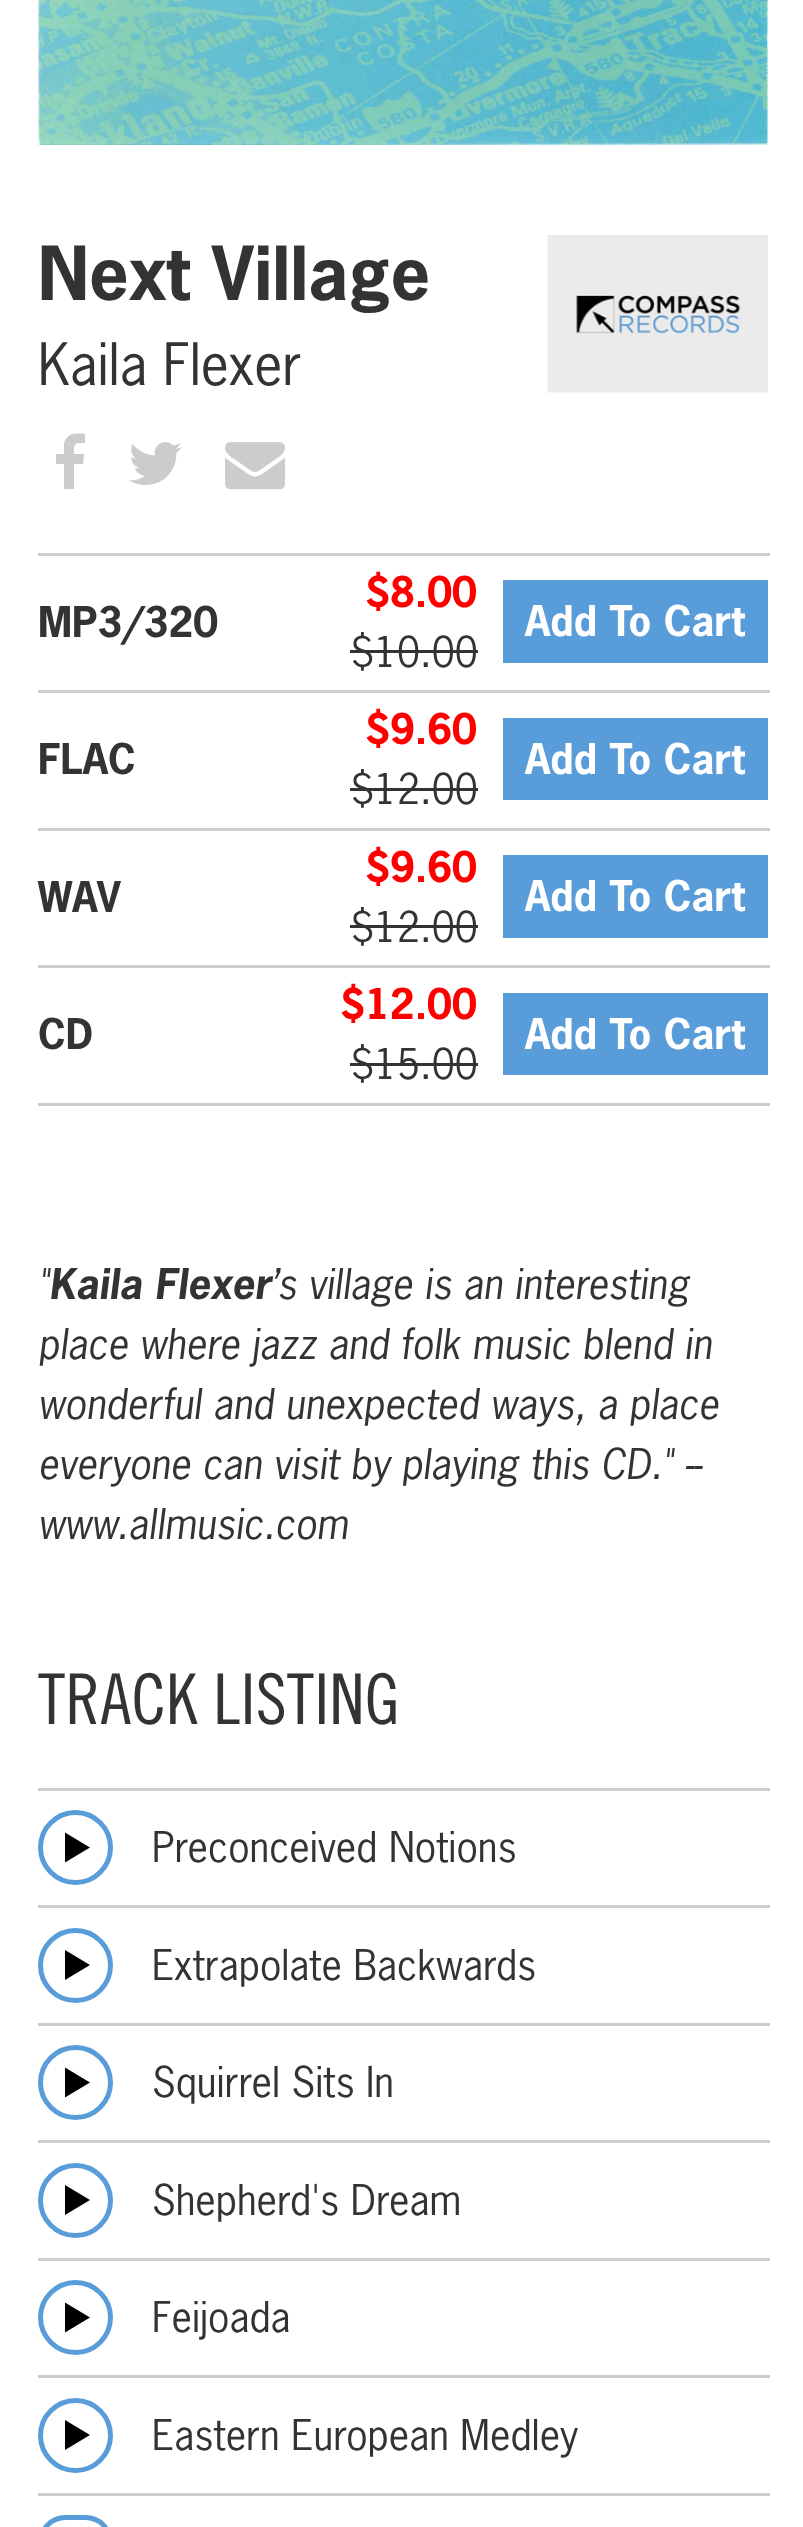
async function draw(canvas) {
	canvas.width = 803;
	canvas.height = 2527;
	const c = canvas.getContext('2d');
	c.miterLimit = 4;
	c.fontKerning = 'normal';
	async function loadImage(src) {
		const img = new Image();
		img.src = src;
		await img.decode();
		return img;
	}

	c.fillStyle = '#fff';
	c.fillRect(0, 0, 803, 2527);
	c.drawImage(await loadImage('img1.png'), 38, 0, 730, 145);
	c.font = 'bold 70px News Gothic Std';
	c.fillStyle = '#333';
	c.fillText('Next Village', 38, 300);
	c.font = '55px News Gothic Std';
	c.fillText('Kaila Flexer', 38, 385);
	c.fillStyle = '#ccc';
	c.beginPath();
	c.moveTo(85, 434);
	c.lineTo(85, 443);
	c.bezierCurveTo(74, 443, 74, 443, 74, 454);
	c.lineTo(84, 454);
	c.lineTo(83, 464);
	c.lineTo(74, 464);
	c.lineTo(74, 489);
	c.lineTo(64, 489);
	c.lineTo(64, 464);
	c.lineTo(56, 464);
	c.lineTo(56, 454);
	c.lineTo(64, 454);
	c.lineTo(64, 444);
	c.bezierCurveTo(66, 433, 76, 433, 85, 434);
	c.closePath();
	c.fill();
	c.drawImage(await loadImage('img2.png'), 129, 442, 53, 43);
	c.drawImage(await loadImage('img3.png'), 225, 442, 60, 48);
	c.drawImage(await loadImage('img4.png'), 547, 235, 221, 158);
	c.fillRect(38, 553, 732, 3);
	c.font = 'bold 40px News Gothic Std';
	c.fillStyle = '#333';
	c.fillText('MP3/320', 38, 637);
	c.fillStyle = '#f00';
	c.fillText('$8.00', 365, 607);
	c.font = '40px News Gothic Std';
	c.fillStyle = '#333';
	c.fillText('$10.00', 351, 667);
	c.fillRect(350, 650, 128, 3);
	c.fillStyle = '#589cd9';
	c.fillRect(503, 580, 265, 83);
	c.font = 'bold 40px News Gothic Std';
	c.fillStyle = '#fff';
	c.fillText('Add To Cart', 525, 636);
	c.fillStyle = '#ccc';
	c.fillRect(38, 690, 732, 3);
	c.fillStyle = '#333';
	c.fillText('FLAC', 38, 774);
	c.fillStyle = '#f00';
	c.fillText('$9.60', 365, 744);
	c.font = '40px News Gothic Std';
	c.fillStyle = '#333';
	c.fillText('$12.00', 351, 804);
	c.fillRect(350, 788, 128, 3);
	c.fillStyle = '#589cd9';
	c.fillRect(503, 718, 265, 82);
	c.font = 'bold 40px News Gothic Std';
	c.fillStyle = '#fff';
	c.fillText('Add To Cart', 525, 774);
	c.fillStyle = '#ccc';
	c.fillRect(38, 828, 732, 3);
	c.fillStyle = '#333';
	c.fillText('WAV', 38, 912);
	c.fillStyle = '#f00';
	c.fillText('$9.60', 365, 882);
	c.font = '40px News Gothic Std';
	c.fillStyle = '#333';
	c.fillText('$12.00', 351, 942);
	c.fillRect(350, 925, 128, 3);
	c.fillStyle = '#589cd9';
	c.fillRect(503, 855, 265, 83);
	c.font = 'bold 40px News Gothic Std';
	c.fillStyle = '#fff';
	c.fillText('Add To Cart', 525, 911);
	c.fillStyle = '#ccc';
	c.fillRect(38, 965, 732, 3);
	c.fillRect(38, 1103, 732, 3);
	c.fillStyle = '#333';
	c.fillText('CD', 38, 1049);
	c.fillStyle = '#f00';
	c.fillText('$12.00', 340, 1019);
	c.font = '40px News Gothic Std';
	c.fillStyle = '#333';
	c.fillText('$15.00', 351, 1079);
	c.fillRect(350, 1063, 128, 3);
	c.fillStyle = '#589cd9';
	c.fillRect(503, 993, 265, 82);
	c.font = 'bold 40px News Gothic Std';
	c.fillStyle = '#fff';
	c.fillText('Add To Cart', 525, 1049);
	c.font = 'italic 40px News Gothic Std';
	c.fillStyle = '#333';
	c.fillText('"', 38, 1299);
	c.font = 'italic bold 40px News Gothic Std';
	c.fillText('Kaila Flexer', 49, 1299);
	c.font = 'italic 40px News Gothic Std';
	for (const [text, x, y] of [
		['’s village is an interesting', 271, 1299],
		['place where jazz and folk music blend in', 38, 1359],
		['wonderful and unexpected ways, a place', 38, 1419],
		['everyone can visit by playing this CD." --', 38, 1479],
		['www.allmusic.com', 38, 1539],
	]) {
		c.fillText(text, x, y);
	}
	c.font = '70px "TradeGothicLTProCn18"';
	c.fillText('TRACK LISTING', 38, 1724);
	c.fillStyle = '#ccc';
	c.fillRect(38, 1788, 732, 3);
	c.beginPath();
	c.arc(75.5, 1847.5, 35, 0, 2 * Math.PI);
	c.strokeStyle = '#589cd9';
	c.lineWidth = 5;
	c.stroke();
	c.fillStyle = '#000';
	c.beginPath();
	c.moveTo(65, 1862.5);
	c.lineTo(65, 1832.5);
	c.lineTo(90, 1847.5);
	c.closePath();
	c.fill();
	c.font = '40px News Gothic Std';
	c.fillStyle = '#333';
	c.fillText('Preconceived Notions', 152, 1862);
	c.fillStyle = '#ccc';
	c.fillRect(38, 1905, 732, 3);
	c.beginPath();
	c.arc(75.5, 1965.5, 35, 0, 2 * Math.PI);
	c.stroke();
	c.fillStyle = '#000';
	c.beginPath();
	c.moveTo(65, 1980);
	c.lineTo(65, 1950);
	c.lineTo(90, 1965);
	c.closePath();
	c.fill();
	c.fillStyle = '#333';
	c.fillText('Extrapolate Backwards', 152, 1980);
	c.fillStyle = '#ccc';
	c.fillRect(38, 2023, 732, 3);
	c.beginPath();
	c.arc(75.5, 2082.5, 35, 0, 2 * Math.PI);
	c.stroke();
	c.fillStyle = '#000';
	c.beginPath();
	c.moveTo(65, 2097.5);
	c.lineTo(65, 2067.5);
	c.lineTo(90, 2082.5);
	c.closePath();
	c.fill();
	c.fillStyle = '#333';
	c.fillText('Squirrel Sits In', 152, 2097);
	c.fillStyle = '#ccc';
	c.fillRect(38, 2140, 732, 3);
	c.beginPath();
	c.arc(75.5, 2200.5, 35, 0, 2 * Math.PI);
	c.stroke();
	c.fillStyle = '#000';
	c.beginPath();
	c.moveTo(65, 2215);
	c.lineTo(65, 2185);
	c.lineTo(90, 2200);
	c.closePath();
	c.fill();
	c.fillStyle = '#333';
	c.fillText('Shepherd\'s Dream', 152, 2215);
	c.fillStyle = '#ccc';
	c.fillRect(38, 2258, 732, 3);
	c.beginPath();
	c.arc(75.5, 2317.5, 35, 0, 2 * Math.PI);
	c.stroke();
	c.fillStyle = '#000';
	c.beginPath();
	c.moveTo(65, 2332.5);
	c.lineTo(65, 2302.5);
	c.lineTo(90, 2317.5);
	c.closePath();
	c.fill();
	c.fillStyle = '#333';
	c.fillText('Feijoada', 152, 2332);
	c.fillStyle = '#ccc';
	c.fillRect(38, 2375, 732, 3);
	c.beginPath();
	c.arc(75.5, 2435.5, 35, 0, 2 * Math.PI);
	c.stroke();
	c.fillStyle = '#000';
	c.beginPath();
	c.moveTo(65, 2450);
	c.lineTo(65, 2420);
	c.lineTo(90, 2435);
	c.closePath();
	c.fill();
	c.fillStyle = '#333';
	c.fillText('Eastern European Medley', 152, 2450);
	c.fillStyle = '#ccc';
	c.fillRect(38, 2493, 732, 3);
	c.beginPath();
	c.roundRect(40.5, 2517.5, 70, 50, 35);
	c.stroke();
}

draw(document.querySelector('canvas'));
